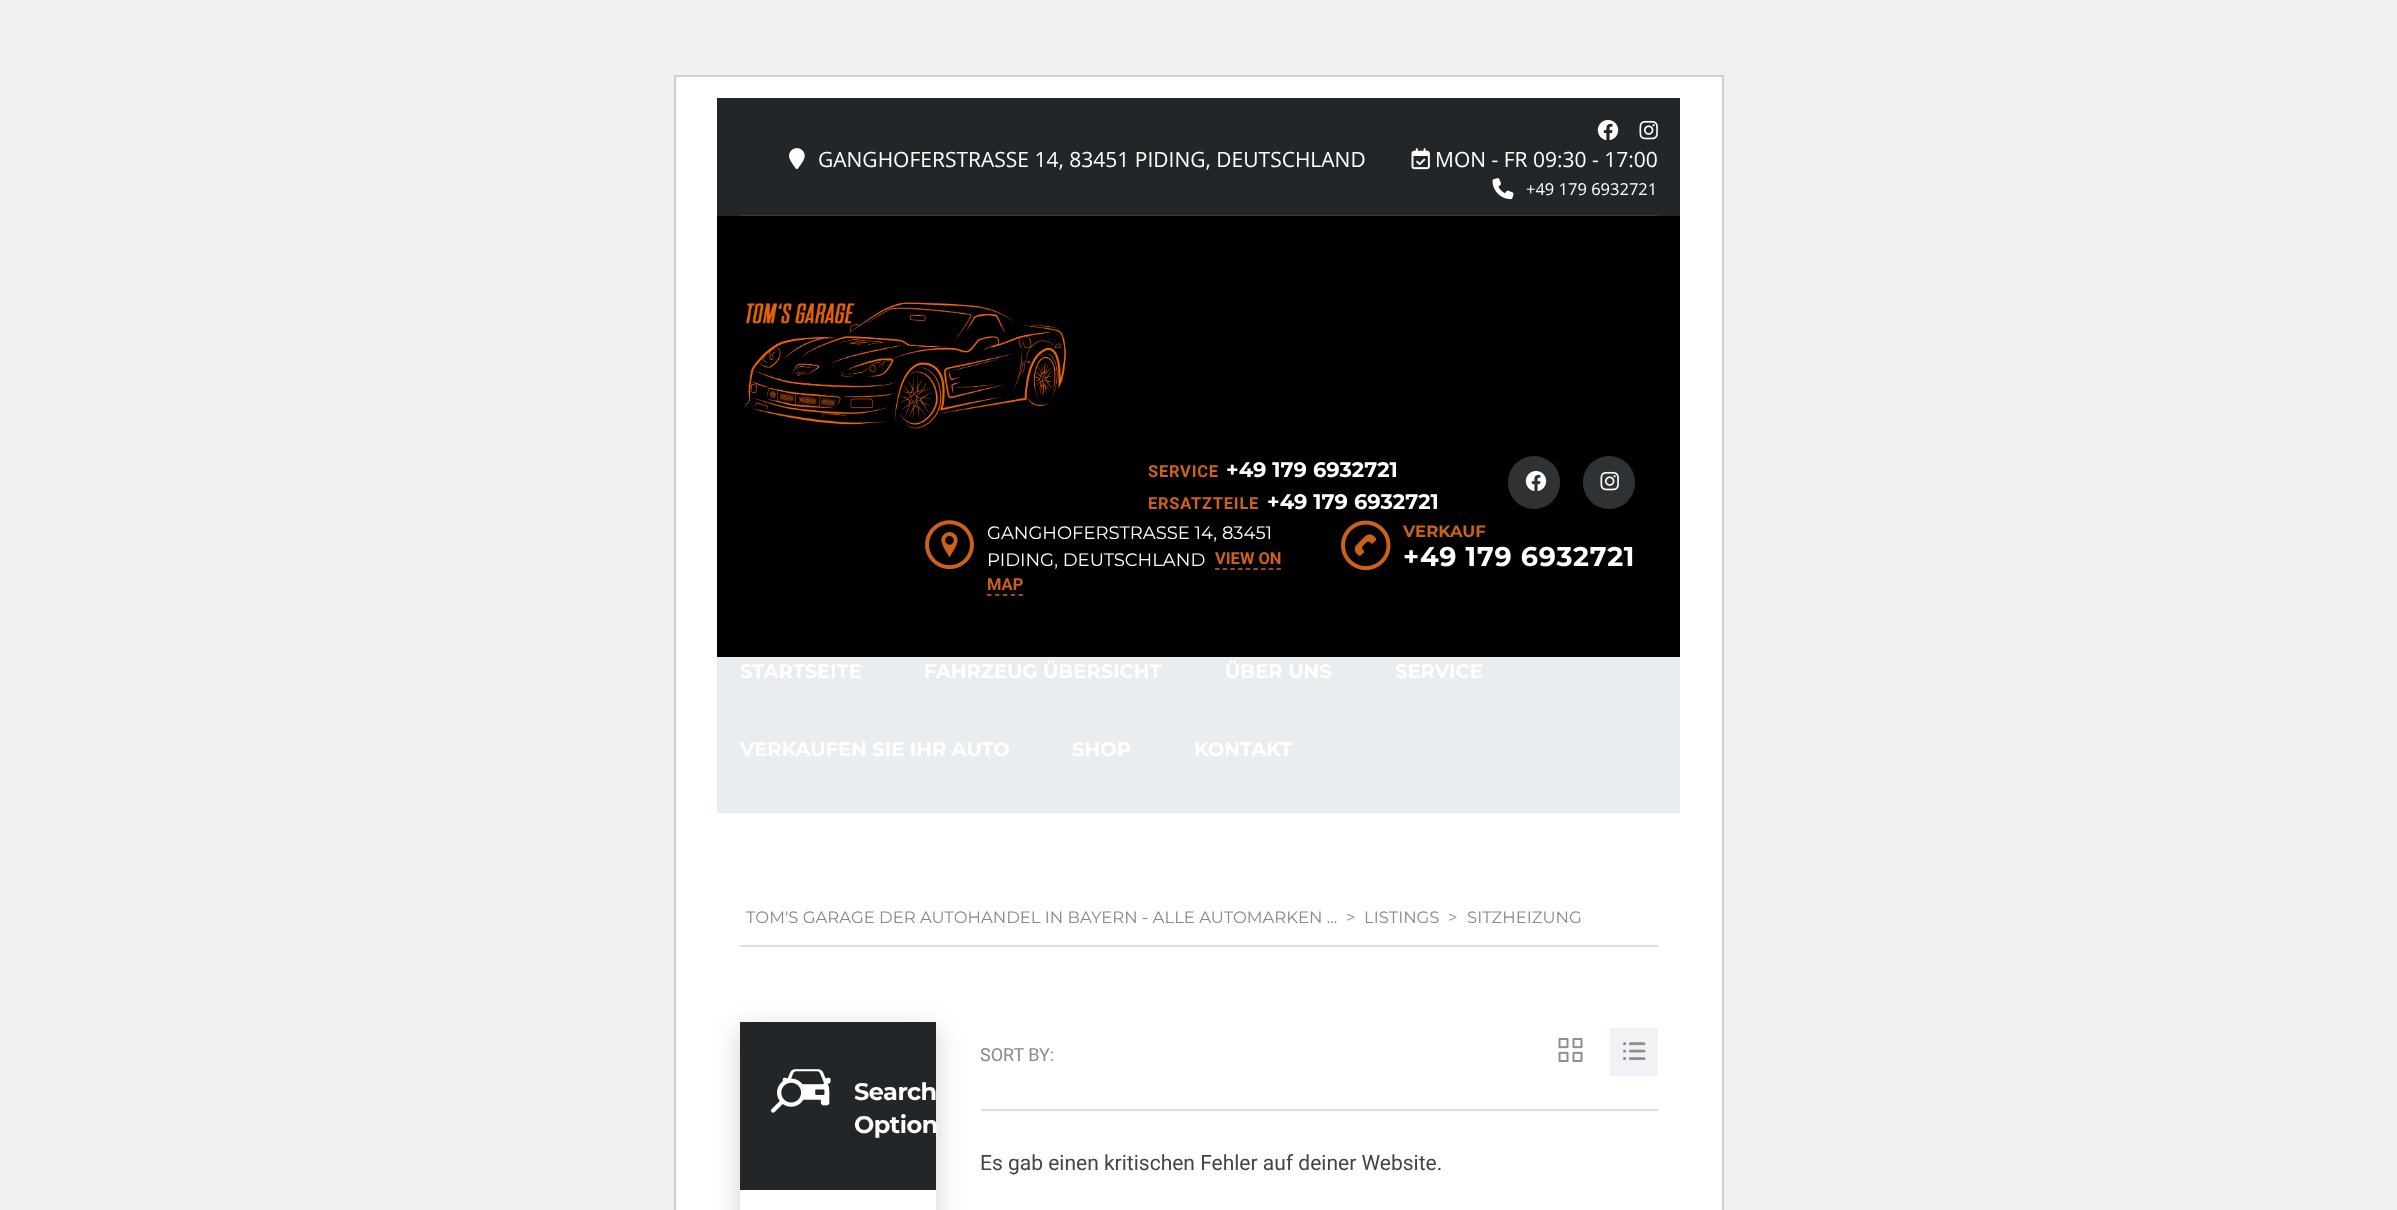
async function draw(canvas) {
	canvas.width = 2397;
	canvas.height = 1210;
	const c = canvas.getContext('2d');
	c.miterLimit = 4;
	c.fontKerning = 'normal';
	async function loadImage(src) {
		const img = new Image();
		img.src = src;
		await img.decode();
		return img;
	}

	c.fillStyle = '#f1f1f1';
	c.fillRect(0, 0, 2397, 1210);
	c.fillStyle = '#fff';
	c.beginPath();
	c.rect(675, 76, 1048, 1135);
	c.fill();
	c.strokeStyle = '#ccd0d4';
	c.lineWidth = 2;
	c.stroke();
	c.fillStyle = '#232628';
	c.fillRect(717, 98, 963, 118);
	c.fillStyle = '#393c3e';
	c.fillRect(740, 215, 918, 1);
	c.drawImage(await loadImage('img1.png'), 1597, 120, 22, 21);
	c.drawImage(await loadImage('img2.png'), 1639, 120, 19, 20);
	c.drawImage(await loadImage('img3.png'), 789, 148, 16, 22);
	c.font = '21px Open Sans';
	c.fillStyle = '#fff';
	c.fillText('GANGHOFERSTRASSE 14, 83451 PIDING, DEUTSCHLAND', 818, 167);
	c.drawImage(await loadImage('img4.png'), 1411, 148, 19, 22);
	c.fillText('MON - FR 09:30 - 17:00', 1435, 167);
	c.drawImage(await loadImage('img5.png'), 1492, 178, 22, 22);
	c.font = '16.5px Open Sans';
	c.fillText('+49 179 6932721', 1526, 195);
	c.fillStyle = '#000';
	c.fillRect(717, 216, 963, 441);
	c.drawImage(await loadImage('img6.png'), 744, 302, 322, 127);
	c.letterSpacing = '0.75px';
	c.font = 'bold 16.5px Roboto';
	c.fillStyle = '#cc6119';
	c.fillText('SERVICE', 1148, 477);
	c.letterSpacing = '0px';
	c.font = 'bold 21px Montserrat';
	c.fillStyle = '#fff';
	c.fillText('+49 179 6932721', 1226, 477);
	c.letterSpacing = '0.75px';
	c.font = 'bold 16.5px Roboto';
	c.fillStyle = '#cc6119';
	c.fillText('ERSATZTEILE', 1148, 509);
	c.letterSpacing = '0px';
	c.font = 'bold 21px Montserrat';
	c.fillStyle = '#fff';
	c.fillText('+49 179 6932721', 1267, 509);
	c.fillStyle = '#2f3234';
	c.beginPath();
	c.roundRect(1508, 456, 52, 53, 26);
	c.fill();
	c.drawImage(await loadImage('img7.png'), 1525, 471, 22, 21);
	c.beginPath();
	c.roundRect(1583, 456, 52, 53, 26);
	c.fill();
	c.drawImage(await loadImage('img8.png'), 1600, 471, 19, 20);
	c.drawImage(await loadImage('img9.png'), 925, 520, 49, 50);
	c.font = '18px Montserrat';
	c.fillStyle = '#fff';
	c.fillText('GANGHOFERSTRASSE 14, 83451', 987, 539);
	c.fillText('PIDING, DEUTSCHLAND', 987, 566);
	c.font = 'bold 16.5px Roboto';
	c.fillStyle = '#cc6119';
	c.fillText('VIEW ON', 1215, 564);
	c.beginPath();
	c.moveTo(1215, 569);
	c.lineTo(1281, 569);
	c.strokeStyle = '#cc6119';
	c.lineWidth = 1.5;
	c.setLineDash([4.5, 3.18]);
	c.stroke();
	c.fillText('MAP', 987, 590);
	c.beginPath();
	c.moveTo(987, 595);
	c.lineTo(1023, 595);
	c.setLineDash([4.5, 3.38]);
	c.stroke();
	c.drawImage(await loadImage('img10.png'), 1341, 520, 50, 51);
	c.font = 'bold 16.5px Montserrat';
	c.fillText('VERKAUF', 1403, 537);
	c.letterSpacing = '0.75px';
	c.font = 'bold 27px Montserrat';
	c.fillStyle = '#fff';
	c.fillText('+49 179 6932721', 1403, 566);
	c.fillStyle = '#eaedf0';
	c.fillRect(717, 657, 963, 156);
	c.letterSpacing = '0px';
	c.font = 'bold 19.5px Montserrat';
	c.fillStyle = '#fff';
	for (const [text, x, y] of [
		['STARTSEITE', 740, 678],
		['FAHRZEUG ÜBERSICHT', 924, 678],
		['ÜBER UNS', 1225, 678],
		['SERVICE', 1395, 678],
		['VERKAUFEN SIE IHR AUTO', 740, 756],
		['SHOP', 1072, 756],
		['KONTAKT', 1194, 756],
	]) {
		c.fillText(text, x, y);
	}
	c.fillStyle = '#ddd';
	c.fillRect(740, 945, 918, 2);
	c.font = '16.5px Montserrat';
	c.fillStyle = '#888';
	for (const [text, x, y] of [
		['TOM\'S GARAGE DER AUTOHANDEL IN BAYERN - ALLE AUTOMARKEN ...', 746, 923],
		['>', 1346, 923],
		['LISTINGS', 1364, 923],
		['>', 1448, 923],
		['SITZHEIZUNG', 1467, 923],
	]) {
		c.fillText(text, x, y);
	}
	c.save();
	c.beginPath();
	c.moveTo(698, 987);
	c.lineTo(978, 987);
	c.lineTo(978, 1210);
	c.lineTo(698, 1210);
	c.closePath();
	c.moveTo(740, 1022);
	c.lineTo(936, 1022);
	c.lineTo(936, 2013);
	c.lineTo(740, 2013);
	c.closePath();
	c.clip('evenodd');
	c.fillStyle = '#0000002e';
	c.filter = 'blur(13.5px)';
	c.beginPath();
	c.rect(740, 1029, 196, 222);
	c.fill();
	c.filter = 'none';
	c.restore();
	c.fillStyle = '#232628';
	c.fillRect(740, 1022, 196, 168);
	c.drawImage(await loadImage('img11.png'), 771, 1069, 60, 44);
	c.letterSpacing = '-0.5px';
	c.font = 'bold 24px Montserrat';
	c.fillStyle = '#fff';
	c.fillText('Search', 854, 1100);
	c.fillText('Option', 854, 1133);
	c.fillStyle = '#ddd';
	c.fillRect(981, 1109, 677, 2);
	c.letterSpacing = '0px';
	c.font = '18px Roboto';
	c.fillStyle = '#888';
	c.fillText('SORT BY:', 980, 1061);
	c.drawImage(await loadImage('img12.png'), 1558, 1038, 25, 24);
	c.fillStyle = '#f0f2f5';
	c.fillRect(1610, 1028, 48, 48);
	c.drawImage(await loadImage('img13.png'), 1623, 1042, 23, 19);
	c.font = '21px Roboto';
	c.fillStyle = '#444';
	c.fillText('Es gab einen kritischen Fehler auf deiner Website.', 980, 1170);
}

draw(document.querySelector('canvas'));
